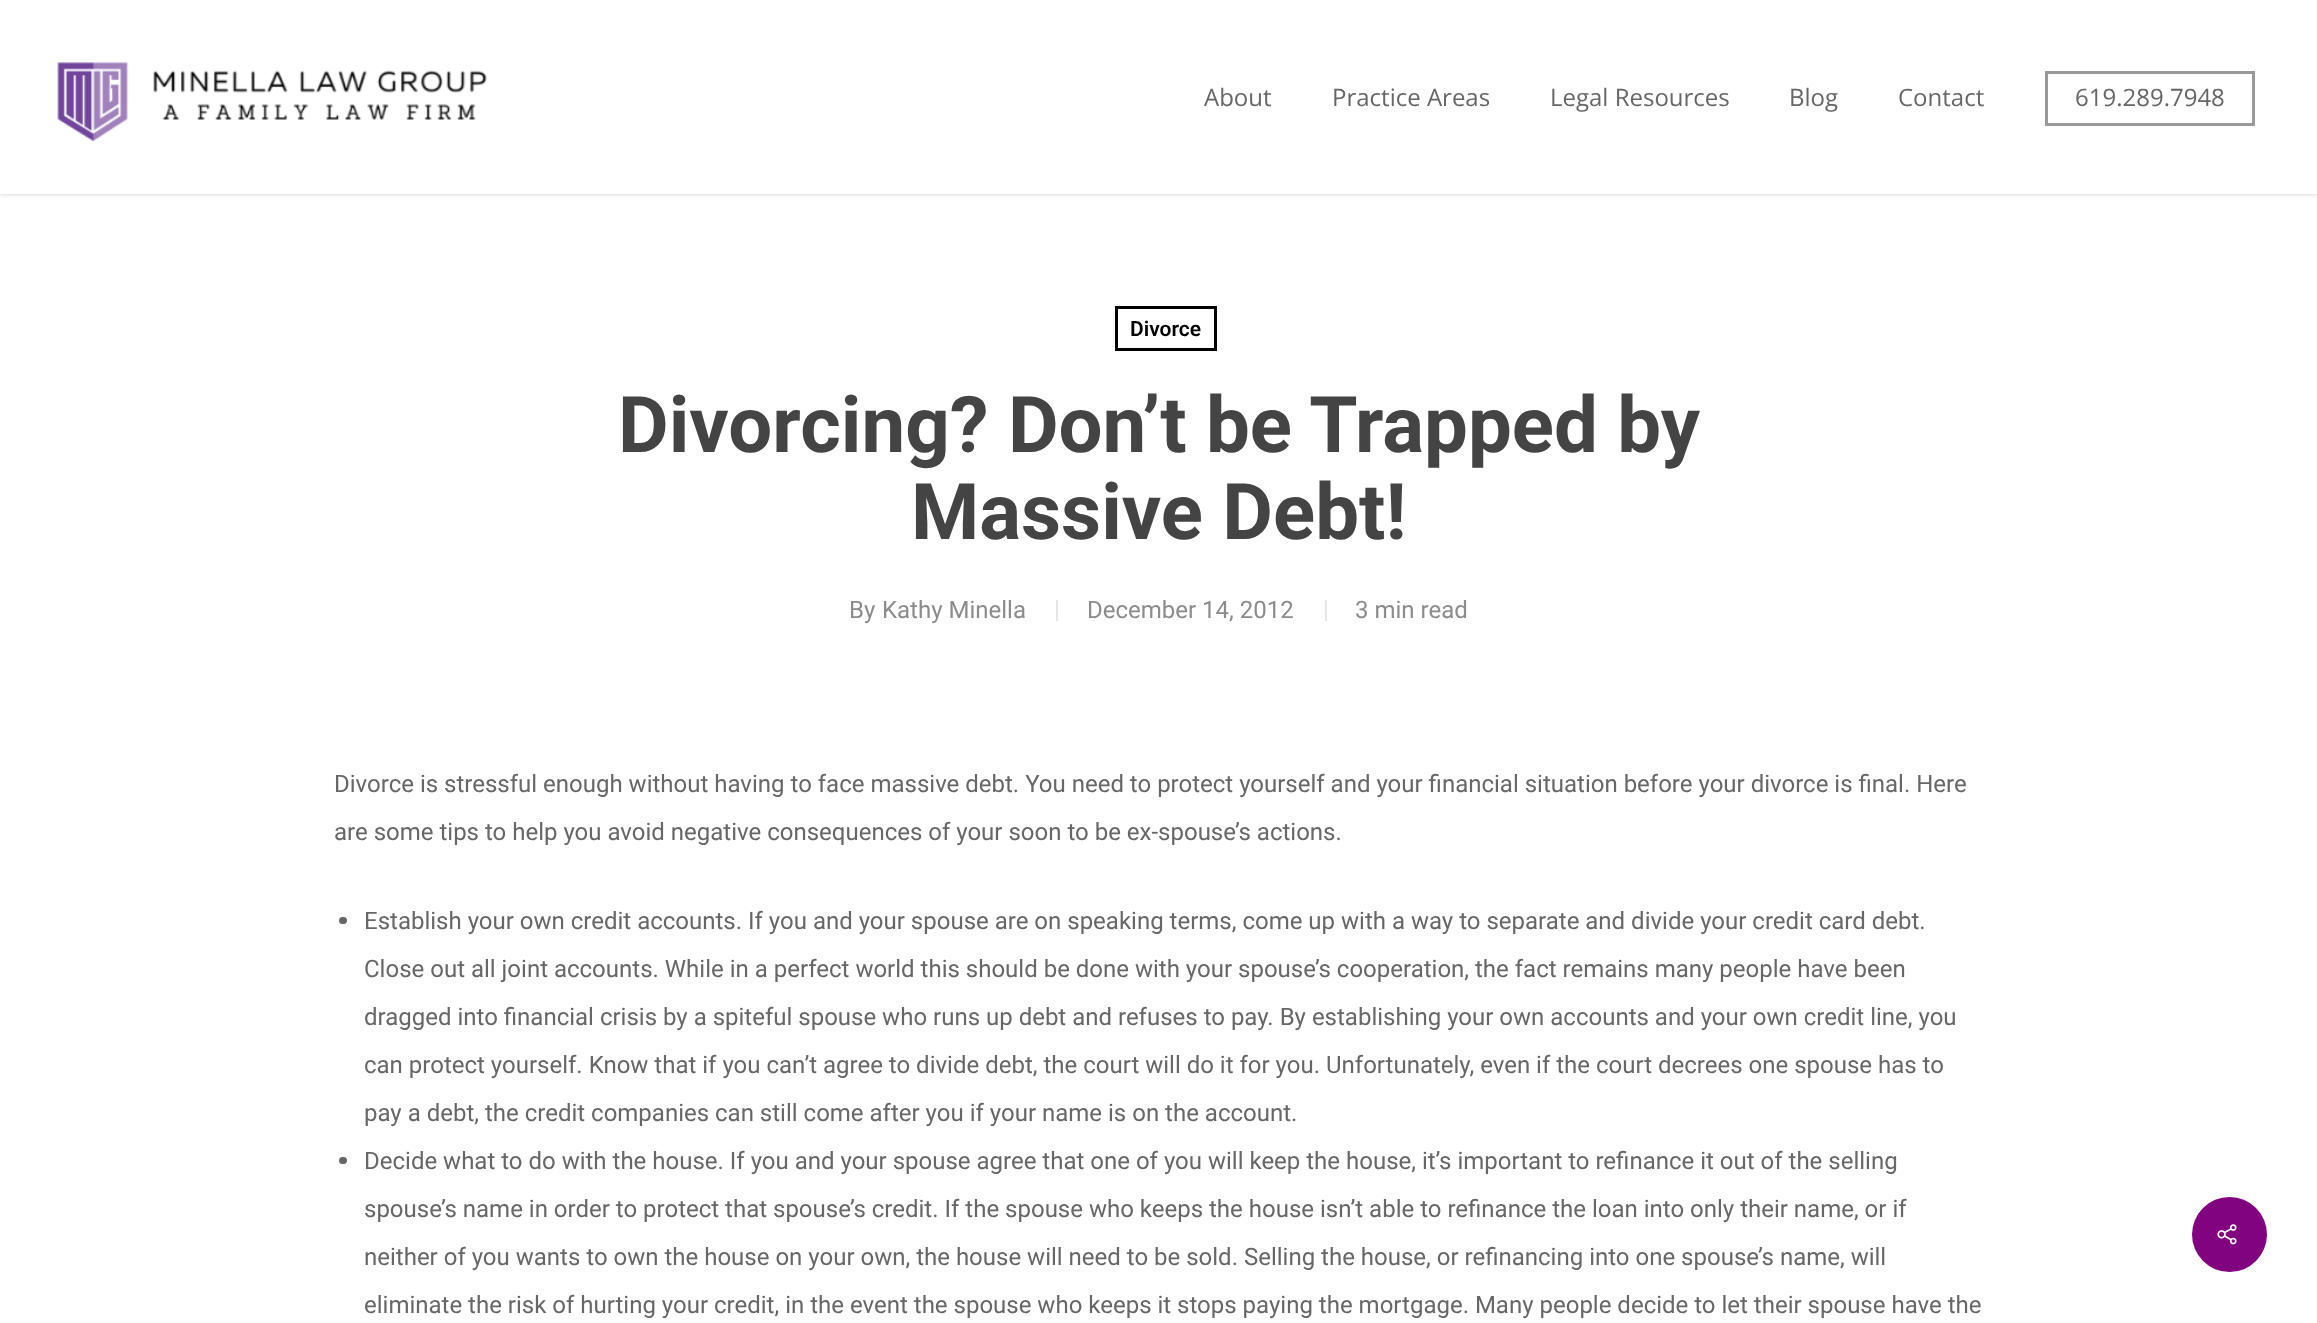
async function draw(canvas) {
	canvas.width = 2317;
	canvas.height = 1323;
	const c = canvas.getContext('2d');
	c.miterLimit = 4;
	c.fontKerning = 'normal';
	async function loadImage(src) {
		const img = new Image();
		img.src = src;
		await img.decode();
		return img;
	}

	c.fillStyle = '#fff';
	c.fillRect(0, 0, 2317, 1323);
	c.fillStyle = '#00000038';
	c.filter = 'blur(2px)';
	c.beginPath();
	c.rect(0, 0, 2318, 194);
	c.fill();
	c.filter = 'none';
	c.fillStyle = '#fff';
	c.fillRect(0, 0, 2317, 194);
	c.drawImage(await loadImage('img1.png'), 57, 62, 430, 80);
	c.font = '24px Open Sans';
	c.fillStyle = '#676767';
	for (const [text, x, y] of [
		['About', 1204, 106],
		['Practice Areas', 1332, 106],
		['Legal Resources', 1550, 106],
		['Blog', 1789, 106],
		['Contact', 1898, 106],
	]) {
		c.fillText(text, x, y);
	}
	c.strokeStyle = '#999';
	c.lineWidth = 3;
	c.strokeRect(2046.5, 72.5, 207, 52);
	c.fillText('619.289.7948', 2075, 106);
	c.strokeStyle = '#000';
	c.strokeRect(1116.5, 307.5, 99, 42);
	c.font = '600 21px Roboto';
	c.fillStyle = '#000';
	c.fillText('Divorce', 1130, 336);
	c.font = 'bold 78px Roboto';
	c.fillStyle = '#444';
	c.fillText('Divorcing? Don’t be Trapped by', 618, 452);
	c.fillText('Massive Debt!', 911, 539);
	c.font = '24px Roboto';
	c.fillStyle = '#8c8c8c';
	c.fillText('By', 849, 618);
	c.fillText('Kathy Minella', 882, 618);
	c.fillStyle = '#e6e6e6';
	c.fillRect(1056, 600, 2, 21);
	c.fillStyle = '#8c8c8c';
	c.fillText('December 14, 2012', 1087, 618);
	c.fillStyle = '#e6e6e6';
	c.fillRect(1325, 600, 2, 21);
	c.fillStyle = '#8c8c8c';
	c.fillText('3 min read', 1355, 618);
	c.fillStyle = '#676767';
	c.fillText('Divorce is stressful enough without having to face massive debt. You need to protect yourself and your financial situation before your divorce is final. Here', 334, 792);
	c.fillText('are some tips to help you avoid negative consequences of your soon to be ex-spouse’s actions.', 334, 840);
	c.beginPath();
	c.roundRect(339, 917, 8, 7, 3.5);
	c.fill();
	for (const [text, x, y] of [
		['Establish your own credit accounts. If you and your spouse are on speaking terms, come up with a way to separate and divide your credit card debt.', 364, 929],
		['Close out all joint accounts. While in a perfect world this should be done with your spouse’s cooperation, the fact remains many people have been', 364, 977],
		['dragged into financial crisis by a spiteful spouse who runs up debt and refuses to pay. By establishing your own accounts and your own credit line, you', 364, 1025],
		['can protect yourself. Know that if you can’t agree to divide debt, the court will do it for you. Unfortunately, even if the court decrees one spouse has to', 364, 1073],
		['pay a debt, the credit companies can still come after you if your name is on the account.', 364, 1121],
	]) {
		c.fillText(text, x, y);
	}
	c.beginPath();
	c.roundRect(339, 1157, 8, 7, 3.5);
	c.fill();
	for (const [text, x, y] of [
		['Decide what to do with the house. If you and your spouse agree that one of you will keep the house, it’s important to refinance it out of the selling', 364, 1169],
		['spouse’s name in order to protect that spouse’s credit. If the spouse who keeps the house isn’t able to refinance the loan into only their name, or if', 364, 1217],
		['neither of you wants to own the house on your own, the house will need to be sold. Selling the house, or refinancing into one spouse’s name, will', 364, 1265],
		['eliminate the risk of hurting your credit, in the event the spouse who keeps it stops paying the mortgage. Many people decide to let their spouse have the', 364, 1313],
	]) {
		c.fillText(text, x, y);
	}
	c.fillStyle = '#81037f';
	c.beginPath();
	c.arc(2229.5, 1234.5, 37.5, 0, 2 * Math.PI);
	c.fill();
	c.drawImage(await loadImage('img2.png'), 2217, 1224, 20, 21);
}

draw(document.querySelector('canvas'));
